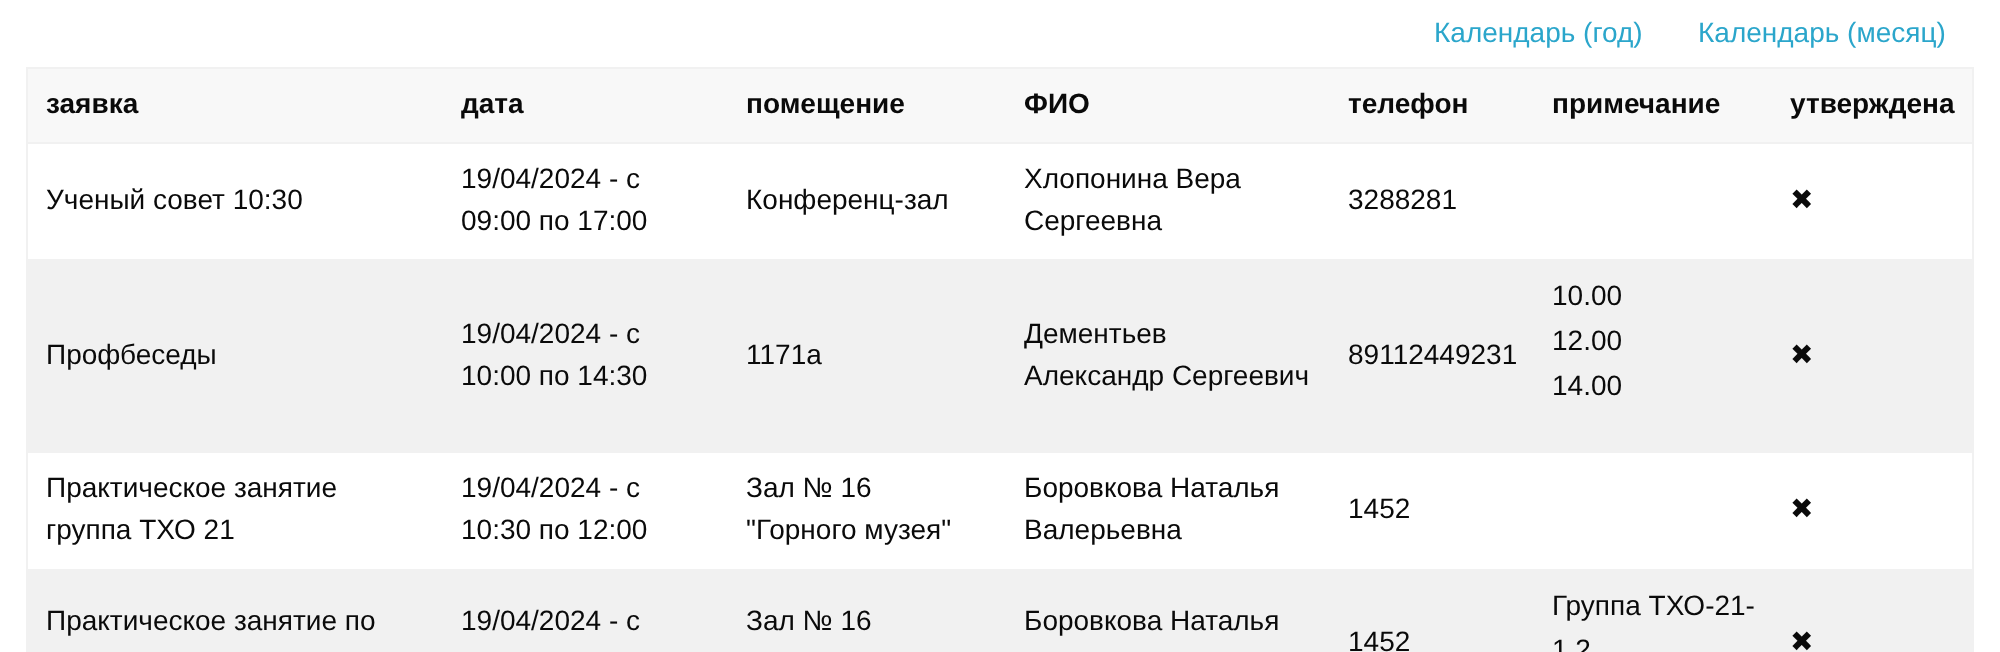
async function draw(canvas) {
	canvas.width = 2000;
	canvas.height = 652;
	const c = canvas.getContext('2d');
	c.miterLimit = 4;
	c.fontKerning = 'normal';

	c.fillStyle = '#fff';
	c.fillRect(0, 0, 2000, 652);
	c.font = '28px Liberation Sans';
	c.fillStyle = '#2ba6cb';
	c.fillText('Календарь (год)', 1434, 42);
	c.fillText('Календарь (месяц)', 1698, 42);
	for (const [x, y, w, h, color] of [
		[28, 69, 1944, 73, '#f8f8f8'],
		[26, 67, 1948, 2, '#f1f1f1'],
		[26, 142, 1948, 2, '#f1f1f1'],
		[1972, 142, 2, 510, '#f1f1f1'],
		[1972, 67, 2, 77, '#f1f1f1'],
		[26, 142, 2, 510, '#f1f1f1'],
		[26, 67, 2, 77, '#f1f1f1'],
	]) {
		c.fillStyle = color;
		c.fillRect(x, y, w, h);
	}
	c.font = 'bold 28px Liberation Sans';
	c.fillStyle = '#0a0a0a';
	for (const [text, x, y] of [
		['заявка', 46, 113],
		['дата', 461, 113],
		['помещение', 746, 113],
		['ФИО', 1024, 113],
		['телефон', 1348, 113],
		['примечание', 1552, 113],
		['утверждена', 1790, 113],
	]) {
		c.fillText(text, x, y);
	}
	c.font = '28px Liberation Sans';
	for (const [text, x, y] of [
		['Ученый совет 10:30', 46, 209],
		['19/04/2024 - с', 461, 188],
		['09:00 по 17:00', 461, 230],
		['Конференц-зал', 746, 209],
		['Хлопонина Вера', 1024, 188],
		['Сергеевна', 1024, 230],
		['3288281', 1348, 209],
	]) {
		c.fillText(text, x, y);
	}
	c.font = '28px DejaVu Sans';
	c.fillText('✖', 1790, 209);
	c.fillStyle = '#f1f1f1';
	c.fillRect(28, 259, 1944, 194);
	c.font = '28px Liberation Sans';
	c.fillStyle = '#0a0a0a';
	for (const [text, x, y] of [
		['Профбеседы', 46, 364],
		['19/04/2024 - с', 461, 343],
		['10:00 по 14:30', 461, 385],
		['1171а', 746, 364],
		['Дементьев', 1024, 343],
		['Александр Сергеевич', 1024, 385],
		['89112449231', 1348, 364],
		['10.00', 1552, 305],
		['12.00', 1552, 350],
		['14.00', 1552, 395],
	]) {
		c.fillText(text, x, y);
	}
	c.font = '28px DejaVu Sans';
	c.fillText('✖', 1790, 364);
	c.font = '28px Liberation Sans';
	for (const [text, x, y] of [
		['Практическое занятие', 46, 497],
		['группа ТХО 21', 46, 539],
		['19/04/2024 - с', 461, 497],
		['10:30 по 12:00', 461, 539],
		['Зал № 16', 746, 497],
		['"Горного музея"', 746, 539],
		['Боровкова Наталья', 1024, 497],
		['Валерьевна', 1024, 539],
		['1452', 1348, 518],
	]) {
		c.fillText(text, x, y);
	}
	c.font = '28px DejaVu Sans';
	c.fillText('✖', 1790, 518);
	c.fillStyle = '#f1f1f1';
	c.fillRect(28, 569, 1944, 83);
	c.font = '28px Liberation Sans';
	c.fillStyle = '#0a0a0a';
	for (const [text, x, y] of [
		['Практическое занятие по', 46, 630],
		['19/04/2024 - с', 461, 630],
		['Зал № 16', 746, 630],
		['Боровкова Наталья', 1024, 630],
		['Группа ТХО-21-', 1552, 615],
		['1,2', 1552, 659],
		['1452', 1348, 651],
	]) {
		c.fillText(text, x, y);
	}
	c.font = '28px DejaVu Sans';
	c.fillText('✖', 1790, 651);
}

draw(document.querySelector('canvas'));
